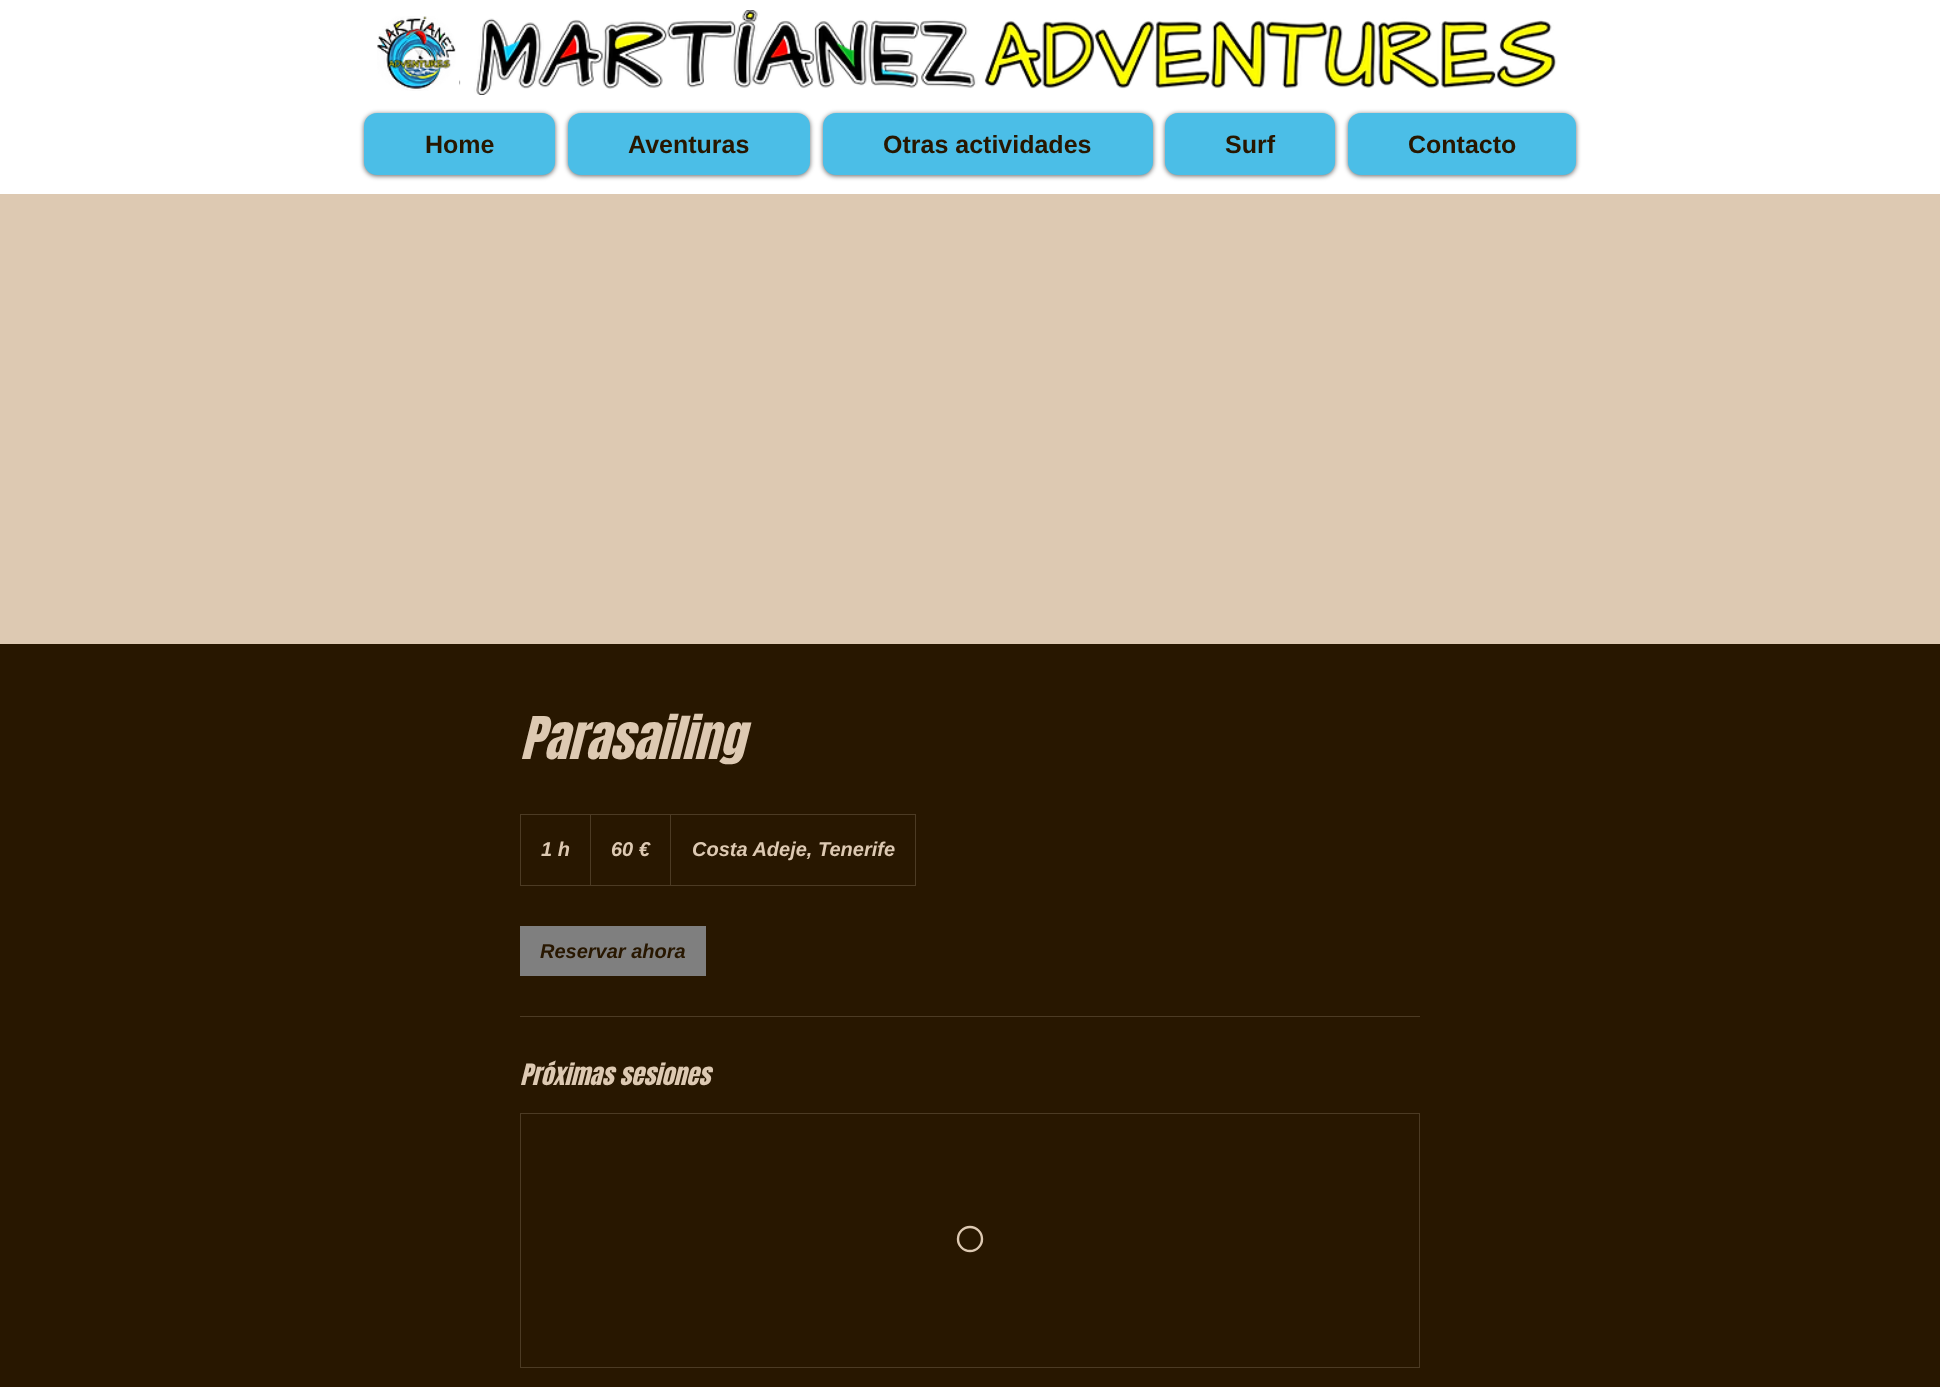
async function draw(canvas) {
	canvas.width = 1940;
	canvas.height = 1387;
	const c = canvas.getContext('2d');
	c.miterLimit = 4;
	c.fontKerning = 'normal';
	async function loadImage(src) {
		const img = new Image();
		img.src = src;
		await img.decode();
		return img;
	}

	c.fillStyle = '#fff';
	c.fillRect(0, 0, 1940, 1387);
	c.drawImage(await loadImage('img1.png'), 377, 16, 79, 75);
	c.drawImage(await loadImage('img2.png'), 459, 10, 1098, 85);
	c.fillStyle = '#00000099';
	c.filter = 'blur(2.5px)';
	c.beginPath();
	c.roundRect(364, 114, 191, 62, 13);
	c.fill();
	c.filter = 'none';
	c.fillStyle = '#4bbee7';
	c.beginPath();
	c.roundRect(364, 113, 191, 62, 13);
	c.fill();
	c.font = 'bold 25px Liberation Sans';
	c.fillStyle = '#281700';
	c.fillText('Home', 425, 153);
	c.fillStyle = '#00000099';
	c.filter = 'blur(2.5px)';
	c.beginPath();
	c.roundRect(568, 114, 242, 62, 13);
	c.fill();
	c.filter = 'none';
	c.fillStyle = '#4bbee7';
	c.beginPath();
	c.roundRect(568, 113, 242, 62, 13);
	c.fill();
	c.fillStyle = '#281700';
	c.fillText('Aventuras', 628, 153);
	c.fillStyle = '#00000099';
	c.filter = 'blur(2.5px)';
	c.beginPath();
	c.roundRect(823, 114, 330, 62, 13);
	c.fill();
	c.filter = 'none';
	c.fillStyle = '#4bbee7';
	c.beginPath();
	c.roundRect(823, 113, 330, 62, 13);
	c.fill();
	c.fillStyle = '#281700';
	c.fillText('Otras actividades', 883, 153);
	c.fillStyle = '#00000099';
	c.filter = 'blur(2.5px)';
	c.beginPath();
	c.roundRect(1165, 114, 170, 62, 13);
	c.fill();
	c.filter = 'none';
	c.fillStyle = '#4bbee7';
	c.beginPath();
	c.roundRect(1165, 113, 170, 62, 13);
	c.fill();
	c.fillStyle = '#281700';
	c.fillText('Surf', 1225, 153);
	c.fillStyle = '#00000099';
	c.filter = 'blur(2.5px)';
	c.beginPath();
	c.roundRect(1348, 114, 228, 62, 13);
	c.fill();
	c.filter = 'none';
	c.fillStyle = '#4bbee7';
	c.beginPath();
	c.roundRect(1348, 113, 228, 62, 13);
	c.fill();
	c.fillStyle = '#281700';
	c.fillText('Contacto', 1408, 153);
	c.fillStyle = '#ddc9b2';
	c.fillRect(0, 194, 1940, 450);
	c.fillStyle = '#281700';
	c.fillRect(0, 644, 1940, 743);
	c.font = 'italic 50px Anton';
	c.fillStyle = '#ddc9b2';
	c.fillText('Parasailing', 520, 759);
	c.strokeStyle = '#4c3b24';
	c.strokeRect(520.5, 814.5, 395, 71);
	c.font = 'italic bold 20px Liberation Sans';
	c.fillText('1 h', 541, 856);
	c.fillStyle = '#4c3b24';
	c.beginPath();
	c.moveTo(590, 885);
	c.lineTo(590, 814);
	c.lineTo(591, 815);
	c.lineTo(591, 885);
	c.closePath();
	c.fill();
	c.fillStyle = '#ddc9b2';
	c.fillText('60 €', 611, 856);
	c.fillStyle = '#4c3b24';
	c.beginPath();
	c.moveTo(670, 885);
	c.lineTo(670, 814);
	c.lineTo(671, 815);
	c.lineTo(671, 885);
	c.closePath();
	c.fill();
	c.fillStyle = '#ddc9b2';
	c.fillText('Costa Adeje, Tenerife', 692, 856);
	c.fillStyle = '#7f7f7f';
	c.fillRect(520, 926, 186, 50);
	c.fillStyle = '#281700';
	c.fillText('Reservar ahora', 540, 958);
	c.fillStyle = '#4c3b24';
	c.fillRect(520, 1016, 900, 1);
	c.font = 'italic 25px Anton';
	c.fillStyle = '#ddc9b2';
	c.fillText('Próximas sesiones', 520, 1085);
	c.strokeRect(520.5, 1113.5, 899, 254);
	c.beginPath();
	c.arc(970, 1239, 12, 0, 2 * Math.PI);
	c.strokeStyle = '#ddc9b2';
	c.lineWidth = 2.4;
	c.stroke();
}

draw(document.querySelector('canvas'));
